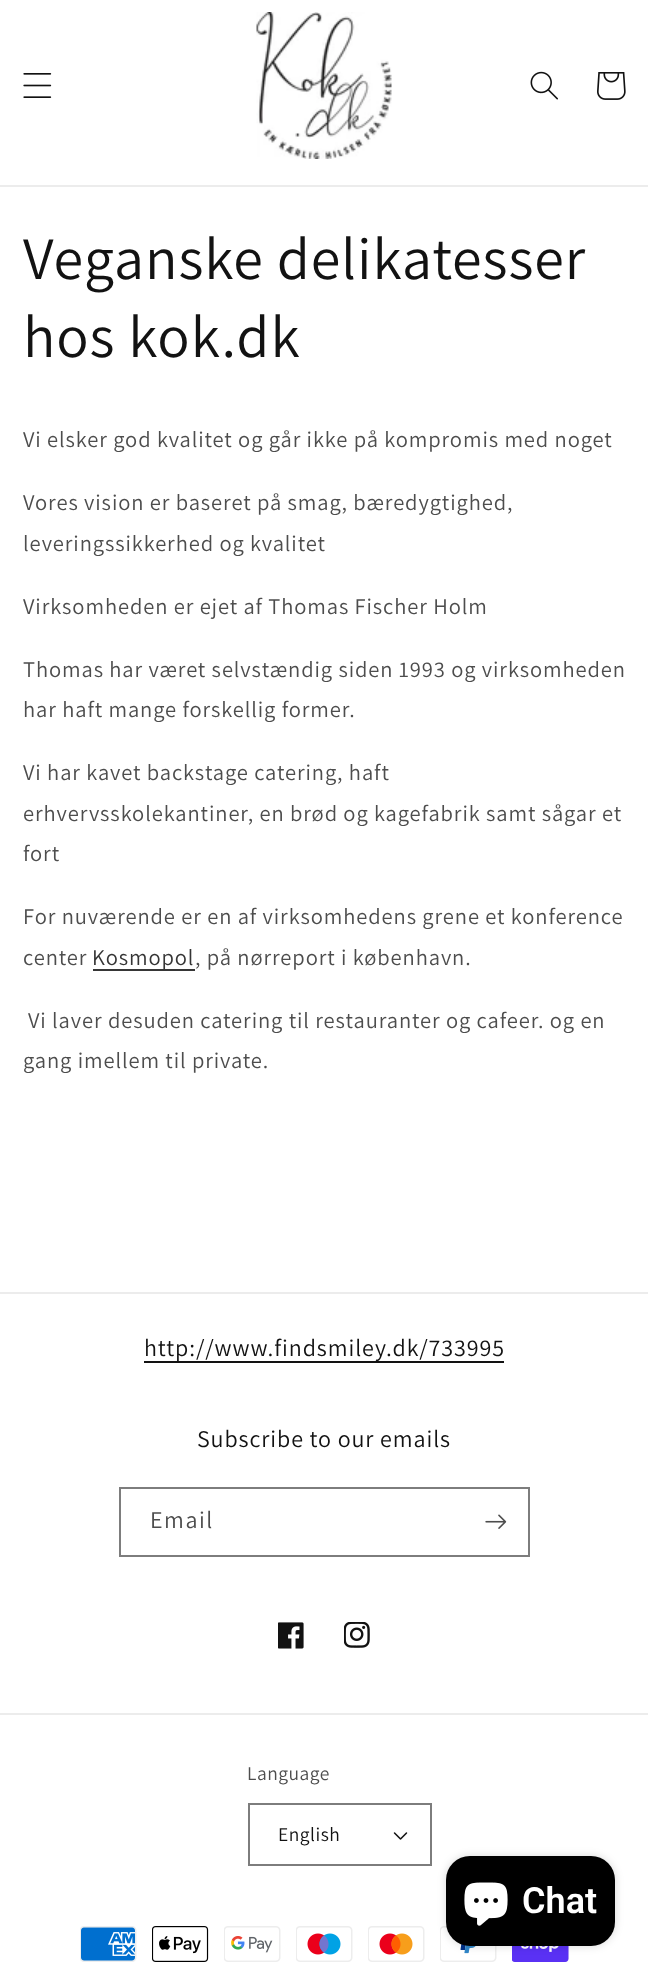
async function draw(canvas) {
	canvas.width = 648;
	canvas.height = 1977;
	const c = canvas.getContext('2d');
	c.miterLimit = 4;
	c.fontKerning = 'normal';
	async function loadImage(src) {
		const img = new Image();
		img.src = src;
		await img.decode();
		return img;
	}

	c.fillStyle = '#fff';
	c.fillRect(0, 0, 648, 1977);
	c.fillStyle = '#ececec';
	c.fillRect(0, 185, 648, 2);
	c.drawImage(await loadImage('img1.png'), 23, 73, 29, 25);
	c.drawImage(await loadImage('img2.png'), 256, 12, 136, 147);
	c.drawImage(await loadImage('img3.png'), 530, 71, 28, 29);
	c.drawImage(await loadImage('img4.png'), 597, 72, 29, 28);
	c.letterSpacing = '0.9px';
	c.font = '60px Assistant';
	c.fillStyle = '#121212';
	c.fillText('Veganske delikatesser', 23, 279);
	c.fillText('hos kok.dk', 23, 357);
	c.font = '22.5px Assistant';
	c.fillStyle = '#4d4d4d';
	for (const [text, x, y] of [
		['Vi elsker god kvalitet og går ikke på kompromis med noget', 23, 447],
		['Vores vision er baseret på smag, bæredygtighed,', 23, 510],
		['leveringssikkerhed og kvalitet', 23, 551],
		['Virksomheden er ejet af Thomas Fischer Holm', 23, 614],
		['Thomas har været selvstændig siden 1993 og virksomheden', 23, 677],
		['har haft mange forskellig former.', 23, 717],
		['Vi har kavet backstage catering, haft', 23, 780],
		['erhvervsskolekantiner, en brød og kagefabrik samt sågar et', 23, 821],
		['fort', 23, 861],
		['For nuværende er en af virksomhedens grene et konference', 23, 924],
		['center', 23, 965],
	]) {
		c.fillText(text, x, y);
	}
	c.fillStyle = '#363636';
	c.fillRect(93, 969, 102, 2);
	c.fillStyle = '#353535';
	c.fillText('Kosmopol', 92, 965);
	c.fillStyle = '#4d4d4d';
	for (const [text, x, y] of [
		[', på nørreport i københavn.', 195, 965],
		['Vi laver desuden catering til restauranter og cafeer. og en', 28, 1028],
		['gang imellem til private.', 23, 1068],
	]) {
		c.fillText(text, x, y);
	}
	c.fillStyle = '#ececec';
	c.fillRect(0, 1292, 648, 2);
	c.fillStyle = '#121212';
	c.fillRect(144, 1361, 360, 2);
	c.font = '24px Assistant';
	c.fillText('http://www.findsmiley.dk/733995', 144, 1356);
	c.fillText('Subscribe to our emails', 197, 1447);
	c.strokeStyle = '#7d7d7d';
	c.lineWidth = 2;
	c.strokeRect(120, 1488, 409, 68);
	c.letterSpacing = '1.5px';
	c.fillStyle = '#4d4d4d';
	c.fillText('Email', 150, 1528);
	c.drawImage(await loadImage('img5.png'), 485, 1514, 22, 15);
	c.drawImage(await loadImage('img6.png'), 278, 1622, 26, 27);
	c.drawImage(await loadImage('img7.png'), 344, 1622, 26, 26);
	c.fillStyle = '#ececec';
	c.fillRect(0, 1713, 648, 2);
	c.letterSpacing = '0.5px';
	c.font = '19.5px Assistant';
	c.fillStyle = '#4d4d4d';
	c.fillText('Language', 247, 1780);
	c.drawImage(await loadImage('img8.png'), 393, 1832, 15, 8);
	c.strokeRect(249, 1804, 182, 61);
	c.fillStyle = '#121212';
	c.fillText('English', 278, 1841);
	c.drawImage(await loadImage('img9.png'), 80, 1926, 57, 36);
	c.drawImage(await loadImage('img10.png'), 152, 1926, 57, 36);
	c.drawImage(await loadImage('img11.png'), 224, 1926, 57, 36);
	c.drawImage(await loadImage('img12.png'), 296, 1926, 57, 36);
	c.drawImage(await loadImage('img13.png'), 368, 1926, 57, 36);
	c.drawImage(await loadImage('img14.png'), 440, 1926, 57, 36);
	c.drawImage(await loadImage('img15.png'), 512, 1946, 57, 16);
	c.fillStyle = '#00000026';
	c.filter = 'blur(4px)';
	c.beginPath();
	c.roundRect(446, 1856, 169, 90, 24);
	c.fill();
	c.filter = 'none';
	c.fillStyle = '#000';
	c.beginPath();
	c.roundRect(446, 1856, 169, 90, 24);
	c.fill();
	c.drawImage(await loadImage('img16.png'), 464, 1882, 44, 44);
	c.letterSpacing = '0px';
	c.font = '600 36px Roboto';
	c.fillStyle = '#fff';
	c.fillText('Chat', 522, 1913);
}

draw(document.querySelector('canvas'));
